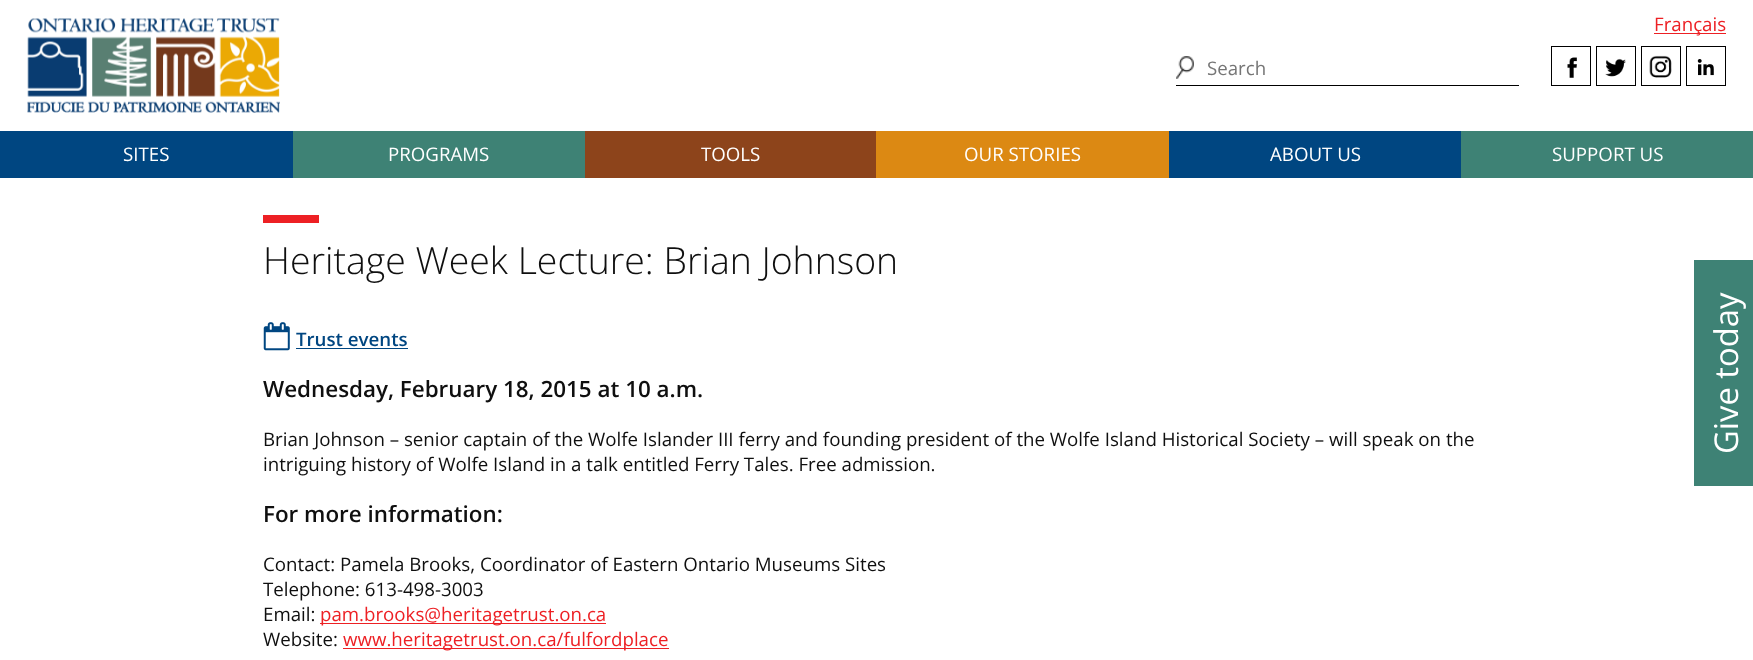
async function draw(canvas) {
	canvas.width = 1753;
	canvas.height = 660;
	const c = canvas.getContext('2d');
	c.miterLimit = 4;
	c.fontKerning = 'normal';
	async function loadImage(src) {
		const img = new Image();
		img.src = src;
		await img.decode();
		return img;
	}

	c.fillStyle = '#fff';
	c.fillRect(0, 0, 1753, 660);
	c.fillStyle = '#ed2024';
	c.fillRect(1654, 33, 72, 1);
	c.font = '18.7px Open Sans';
	c.fillText('Français', 1654, 31);
	c.drawImage(await loadImage('img1.png'), 1176, 56, 18, 23);
	c.fillStyle = '#000';
	c.fillRect(1176, 85, 343, 1);
	c.fillStyle = '#757575';
	c.fillText('Search', 1207, 75);
	c.strokeStyle = '#000';
	c.strokeRect(1551.5, 46.5, 39, 39);
	c.drawImage(await loadImage('img2.png'), 1567, 57, 10, 21);
	c.strokeRect(1596.5, 46.5, 39, 39);
	c.drawImage(await loadImage('img3.png'), 1605, 58, 21, 19);
	c.strokeRect(1641.5, 46.5, 39, 39);
	c.drawImage(await loadImage('img4.png'), 1649, 55, 23, 23);
	c.strokeRect(1686.5, 46.5, 39, 39);
	c.drawImage(await loadImage('img5.png'), 1697, 59, 17, 17);
	c.fillStyle = '#004681';
	c.fillRect(0, 131, 293, 47);
	c.fillStyle = '#fff';
	c.fillText('SITES', 123, 161);
	c.fillStyle = '#3e8275';
	c.fillRect(293, 131, 292, 47);
	c.fillStyle = '#fff';
	c.fillText('PROGRAMS', 388, 161);
	c.fillStyle = '#8d441b';
	c.fillRect(585, 131, 291, 47);
	c.fillStyle = '#fff';
	c.fillText('TOOLS', 701, 161);
	c.fillStyle = '#dc8913';
	c.fillRect(876, 131, 293, 47);
	c.fillStyle = '#fff';
	c.fillText('OUR STORIES', 964, 161);
	c.fillStyle = '#004681';
	c.fillRect(1169, 131, 292, 47);
	c.fillStyle = '#fff';
	c.fillText('ABOUT US', 1270, 161);
	c.fillStyle = '#3e8275';
	c.fillRect(1461, 131, 292, 47);
	c.fillStyle = '#fff';
	c.fillText('SUPPORT US', 1552, 161);
	c.drawImage(await loadImage('img6.png'), 27, 18, 253, 95);
	c.fillStyle = '#ed2024';
	c.fillRect(263, 215, 56, 8);
	c.font = '300 37.4px Open Sans';
	c.fillStyle = '#0f0f0f';
	c.fillText('Heritage Week Lecture: Brian Johnson', 263, 274);
	c.drawImage(await loadImage('img7.png'), 263, 322, 27, 29);
	c.font = '600 18.7px Open Sans';
	c.fillStyle = '#004681';
	c.fillText('Trust events', 296, 346);
	c.fillRect(296, 348, 112, 1);
	c.font = '600 22.4px Open Sans';
	c.fillStyle = '#0f0f0f';
	c.fillText('Wednesday, February 18, 2015 at 10 a.m.', 263, 397);
	c.font = '18.7px Open Sans';
	c.fillText('Brian Johnson – senior captain of the Wolfe Islander III ferry and founding president of the Wolfe Island Historical Society – will speak on the', 263, 446);
	c.fillText('intriguing history of Wolfe Island in a talk entitled Ferry Tales. Free admission.', 263, 471);
	c.font = '600 22.4px Open Sans';
	c.fillText('For more information:', 263, 522);
	c.font = '18.7px Open Sans';
	for (const [text, x, y] of [
		['Contact: Pamela Brooks, Coordinator of Eastern Ontario Museums Sites', 263, 571],
		['Telephone: 613-498-3003', 263, 596],
		['Email:', 263, 621],
	]) {
		c.fillText(text, x, y);
	}
	c.fillStyle = '#ed2024';
	c.fillRect(320, 623, 286, 1);
	c.fillText('pam.brooks@heritagetrust.on.ca', 320, 621);
	c.fillStyle = '#0f0f0f';
	c.fillText('Website:', 263, 646);
	c.fillStyle = '#ed2024';
	c.fillRect(343, 648, 326, 1);
	c.fillText('www.heritagetrust.on.ca/fulfordplace', 343, 646);
	c.fillStyle = '#3e8275';
	c.fillRect(1694, 260, 59, 226);
	c.font = '32.75px Open Sans';
	c.fillStyle = '#fff';
	c.save();
	c.translate(1738, 454);
	c.rotate(-90 * Math.PI / 180);
	c.fillText('Give today', 0, 0);
	c.restore();
}

draw(document.querySelector('canvas'));
